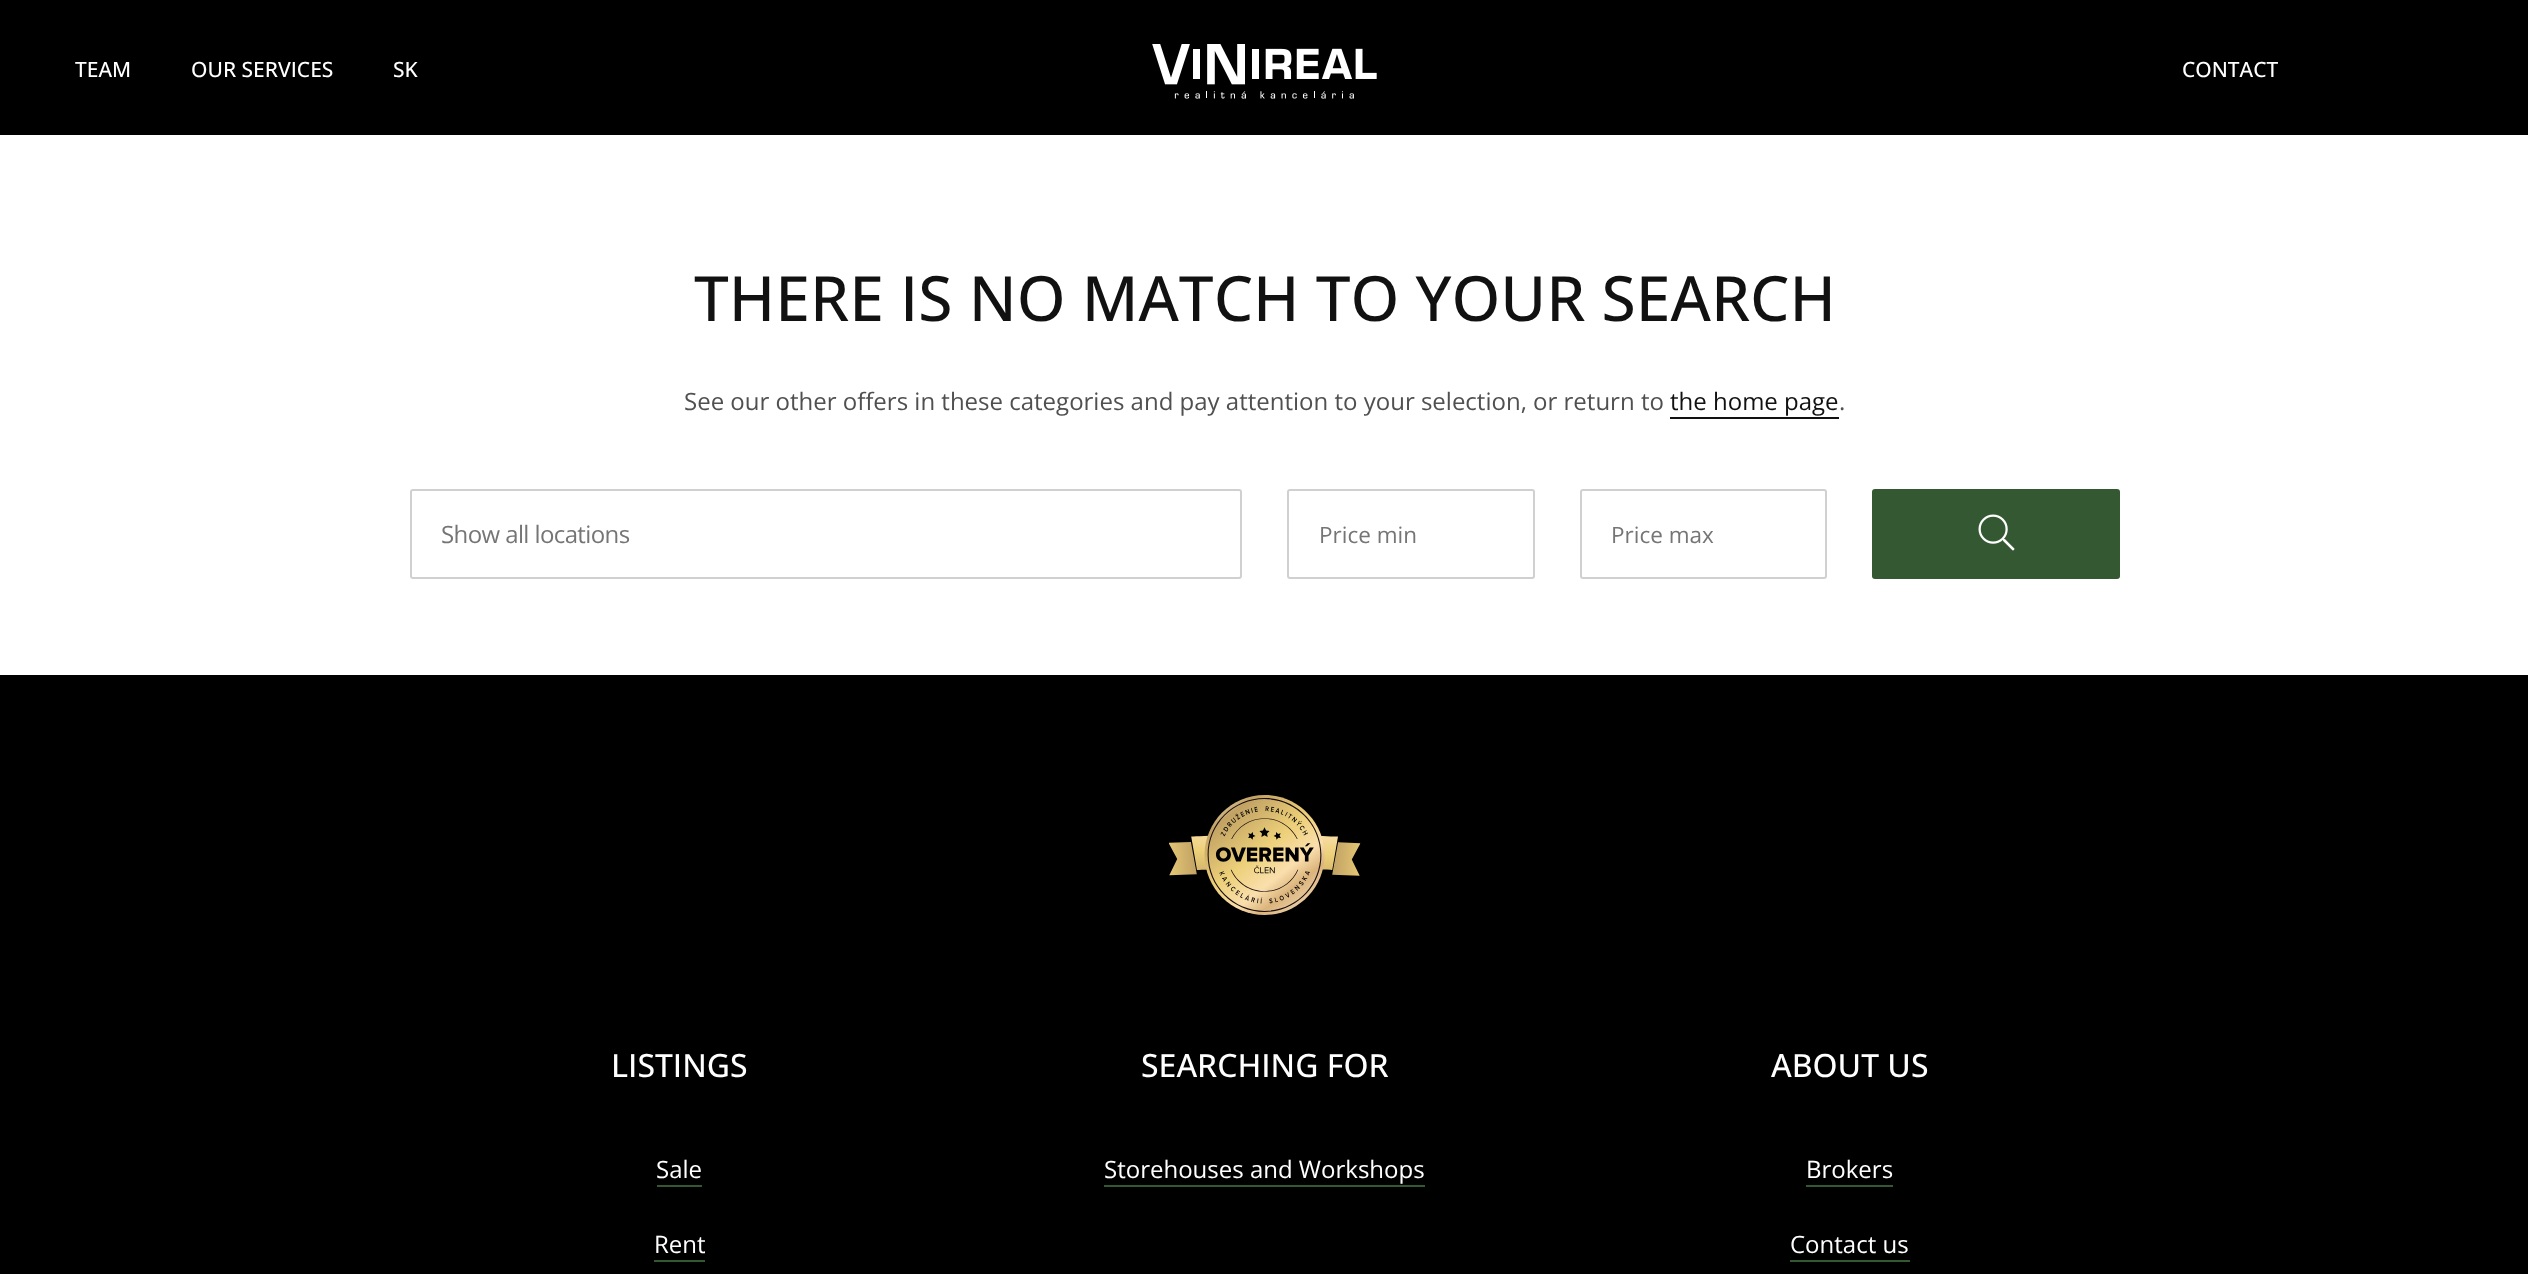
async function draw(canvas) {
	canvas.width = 2528;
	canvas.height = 1274;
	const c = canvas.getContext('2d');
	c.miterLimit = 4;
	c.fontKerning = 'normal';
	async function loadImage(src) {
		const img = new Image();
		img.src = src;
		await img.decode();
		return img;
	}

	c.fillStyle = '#fff';
	c.fillRect(0, 0, 2528, 1274);
	c.fillStyle = '#000';
	c.fillRect(0, 0, 2528, 135);
	c.font = '500 21px Open Sans';
	c.fillStyle = '#fff';
	for (const [text, x, y] of [
		['TEAM', 75, 77],
		['OUR SERVICES', 191, 77],
		['SK', 393, 77],
	]) {
		c.fillText(text, x, y);
	}
	c.drawImage(await loadImage('img1.png'), 1152, 44, 225, 55);
	c.fillText('CONTACT', 2182, 77);
	c.font = '500 62.4px Open Sans';
	c.fillStyle = '#111';
	c.fillText('THERE IS NO MATCH TO YOUR SEARCH', 694, 321);
	c.font = '24px Open Sans';
	c.fillStyle = '#505050';
	c.fillText('See our other offers in these categories and pay attention to your selection, or return to', 684, 410);
	c.fillStyle = '#111';
	c.fillText('the home page', 1670, 410);
	c.fillRect(1670, 417, 169, 2);
	c.fillStyle = '#505050';
	c.fillText('.', 1839, 410);
	c.beginPath();
	c.roundRect(411, 490, 830, 88, 2);
	c.strokeStyle = '#d0d0d0';
	c.lineWidth = 2;
	c.stroke();
	c.letterSpacing = '-0.6px';
	c.fillStyle = '#757575';
	c.fillText('Show all locations', 441, 543);
	c.beginPath();
	c.roundRect(1288, 490, 246, 88, 2);
	c.stroke();
	c.letterSpacing = '0px';
	c.font = '22.5px Open Sans';
	c.fillText('Price min', 1319, 543);
	c.beginPath();
	c.roundRect(1581, 490, 245, 88, 2);
	c.stroke();
	c.fillText('Price max', 1611, 543);
	c.fillStyle = '#345832';
	c.beginPath();
	c.roundRect(1872, 489, 248, 90, 3);
	c.fill();
	c.drawImage(await loadImage('img2.png'), 1978, 514, 37, 37);
	c.fillStyle = '#000';
	c.fillRect(0, 675, 2528, 599);
	c.drawImage(await loadImage('img3.png'), 1169, 795, 192, 120);
	c.font = '500 32px Open Sans';
	c.fillStyle = '#fff';
	c.fillText('LISTINGS', 611, 1077);
	c.font = '24px Open Sans';
	c.fillText('Sale', 656, 1178);
	c.fillStyle = '#345832';
	c.fillRect(657, 1185, 45, 2);
	c.fillStyle = '#fff';
	c.fillText('Rent', 654, 1253);
	c.fillStyle = '#345832';
	c.fillRect(654, 1260, 51, 2);
	c.font = '500 32px Open Sans';
	c.fillStyle = '#fff';
	c.fillText('SEARCHING FOR', 1141, 1077);
	c.font = '24px Open Sans';
	c.fillText('Storehouses and Workshops', 1104, 1178);
	c.fillStyle = '#345832';
	c.fillRect(1104, 1185, 321, 2);
	c.font = '500 32px Open Sans';
	c.fillStyle = '#fff';
	c.fillText('ABOUT US', 1771, 1077);
	c.font = '24px Open Sans';
	c.fillText('Brokers', 1806, 1178);
	c.fillStyle = '#345832';
	c.fillRect(1806, 1185, 87, 2);
	c.fillStyle = '#fff';
	c.fillText('Contact us', 1790, 1253);
	c.fillStyle = '#345832';
	c.fillRect(1790, 1260, 120, 2);
}

draw(document.querySelector('canvas'));
